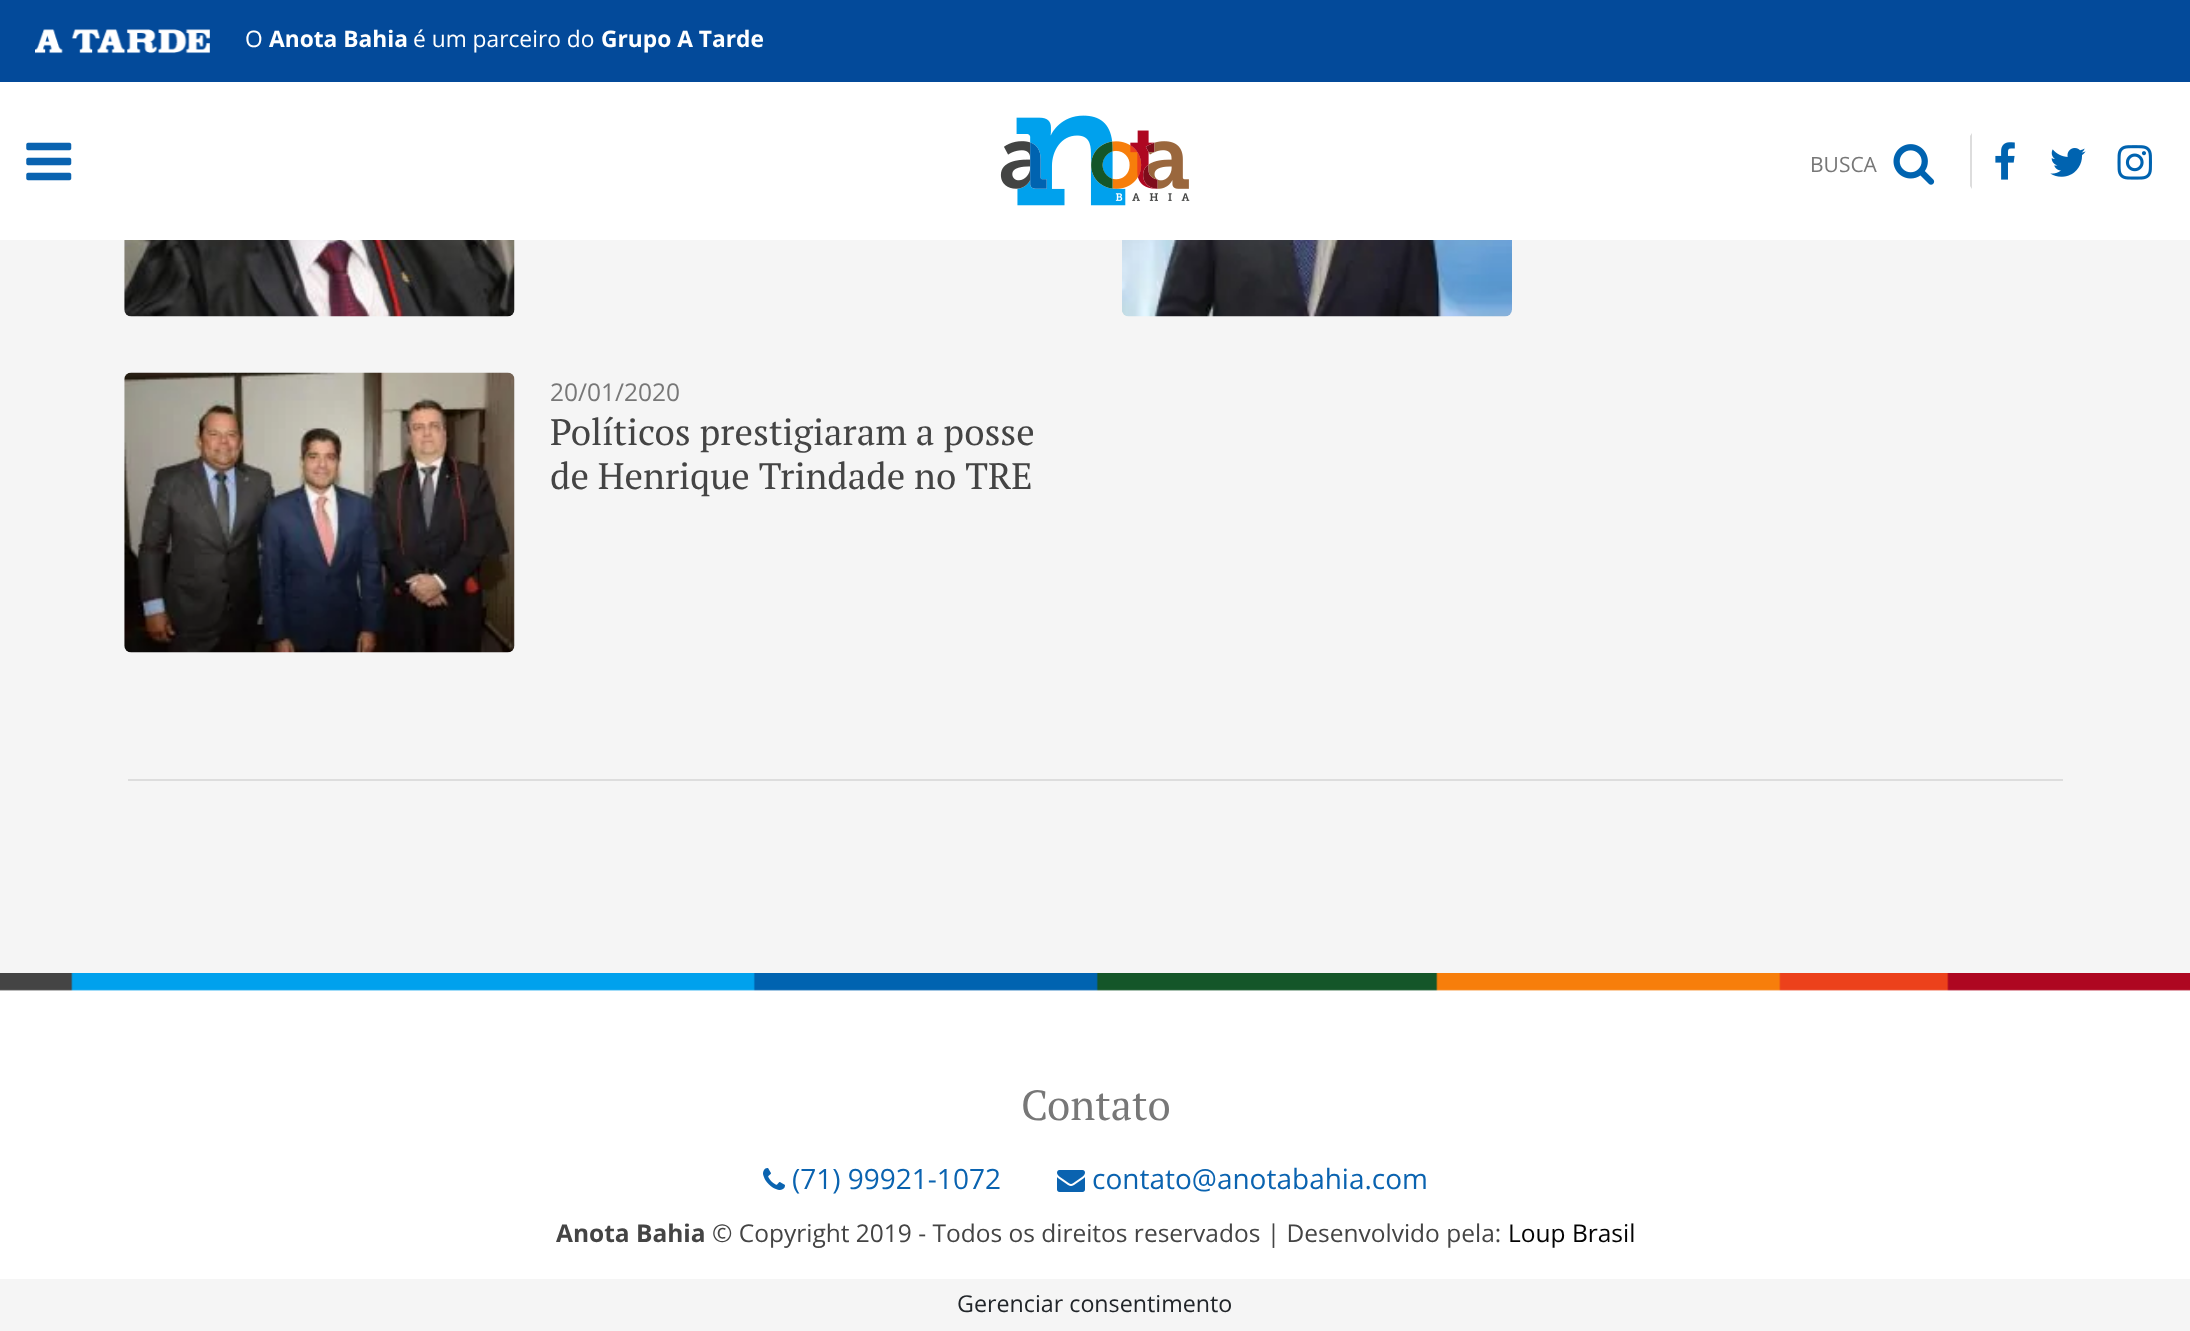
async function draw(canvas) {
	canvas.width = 2190;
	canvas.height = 1331;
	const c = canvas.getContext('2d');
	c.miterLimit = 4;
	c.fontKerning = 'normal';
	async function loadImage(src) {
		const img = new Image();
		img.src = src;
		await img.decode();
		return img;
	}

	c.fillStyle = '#f5f5f5';
	c.fillRect(0, 0, 2190, 1331);
	c.fillStyle = '#034a9a';
	c.fillRect(0, 0, 2190, 82);
	c.drawImage(await loadImage('img1.png'), 35, 29, 175, 25);
	c.font = '22.75px Open Sans';
	c.fillStyle = '#fff';
	c.fillText('O', 245, 47);
	c.font = 'bold 22.75px Open Sans';
	c.fillText('Anota Bahia', 269, 47);
	c.font = '22.75px Open Sans';
	c.fillText('é um parceiro do', 413, 47);
	c.font = 'bold 22.75px Open Sans';
	c.fillText('Grupo A Tarde', 601, 47);
	c.fillRect(0, 82, 2190, 158);
	c.drawImage(await loadImage('img2.png'), 26, 142, 46, 39);
	c.drawImage(await loadImage('img3.png'), 1000, 115, 190, 91);
	c.fillStyle = '#ddd';
	c.beginPath();
	c.moveTo(1972, 133);
	c.lineTo(1972, 189);
	c.lineTo(1970, 186);
	c.lineTo(1970, 136);
	c.closePath();
	c.fill();
	c.font = '21px Open Sans';
	c.fillStyle = '#777';
	c.fillText('BUSCA', 1810, 172);
	c.drawImage(await loadImage('img4.png'), 1893, 144, 42, 41);
	c.drawImage(await loadImage('img5.png'), 1995, 142, 20, 38);
	c.drawImage(await loadImage('img6.png'), 2050, 148, 36, 29);
	c.drawImage(await loadImage('img7.png'), 2117, 145, 35, 35);
	c.drawImage(await loadImage('img8.png'), 124, 240, 391, 77);
	c.drawImage(await loadImage('img9.png'), 1122, 240, 390, 77);
	c.drawImage(await loadImage('img10.png'), 124, 372, 391, 281);
	c.font = '24.5px Open Sans';
	c.fillText('20/01/2020', 550, 401);
	c.font = '36.75px PT Serif';
	c.fillStyle = '#444';
	c.fillText('Políticos prestigiaram a posse', 550, 445);
	c.fillText('de Henrique Trindade no TRE', 550, 489);
	c.fillStyle = '#ddd';
	c.fillRect(128, 779, 1935, 2);
	c.save();
	c.beginPath();
	c.moveTo(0, 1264);
	c.lineTo(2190, 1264);
	c.lineTo(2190, 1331);
	c.lineTo(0, 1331);
	c.closePath();
	c.moveTo(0, 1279);
	c.lineTo(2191, 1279);
	c.lineTo(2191, 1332);
	c.lineTo(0, 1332);
	c.closePath();
	c.clip('evenodd');
	c.fillStyle = '#161616';
	c.filter = 'blur(4.5px)';
	c.beginPath();
	c.rect(0, 1279, 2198, 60);
	c.fill();
	c.filter = 'none';
	c.restore();
	c.fillStyle = '#fff';
	c.fillRect(0, 989, 2190, 290);
	c.drawImage(await loadImage('img11.png'), 0, 973, 2190, 18);
	c.font = '42px PT Serif';
	c.fillStyle = '#777';
	c.fillText('Contato', 1021, 1120);
	c.drawImage(await loadImage('img12.png'), 763, 1168, 22, 22);
	c.font = '28px Open Sans';
	c.fillStyle = '#0a63b0';
	c.fillText('(71) 99921-1072', 792, 1189);
	c.drawImage(await loadImage('img13.png'), 1057, 1170, 28, 22);
	c.fillText('contato@anotabahia.com', 1092, 1189);
	c.font = 'bold 24.5px Open Sans';
	c.fillStyle = '#444';
	c.fillText('Anota Bahia', 556, 1242);
	c.font = '24.5px Open Sans';
	c.fillText('© Copyright 2019 - Todos os direitos reservados | Desenvolvido pela:', 712, 1242);
	c.fillStyle = '#030303';
	c.fillText('Loup Brasil', 1508, 1242);
	c.font = '23.25px Open Sans';
	c.fillStyle = '#212529';
	c.fillText('Gerenciar consentimento', 957, 1312);
}

draw(document.querySelector('canvas'));
